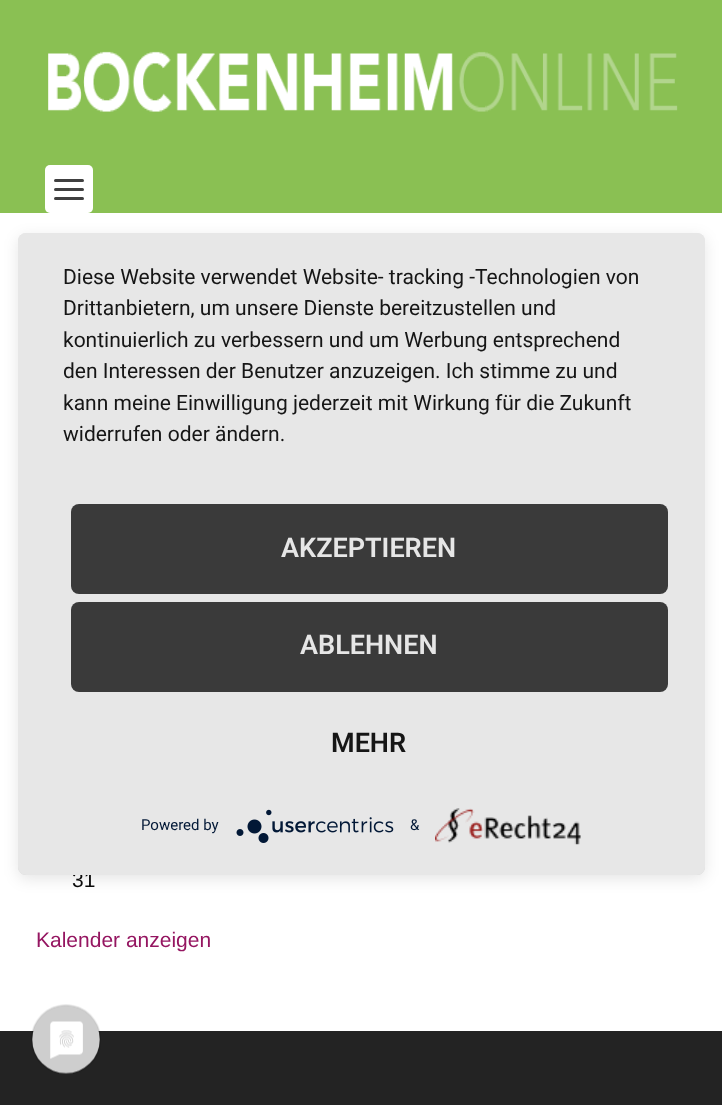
async function draw(canvas) {
	canvas.width = 722;
	canvas.height = 1105;
	const c = canvas.getContext('2d');
	c.miterLimit = 4;
	c.fontKerning = 'normal';
	async function loadImage(src) {
		const img = new Image();
		img.src = src;
		await img.decode();
		return img;
	}

	c.fillStyle = '#fff';
	c.fillRect(0, 0, 722, 1105);
	c.fillStyle = '#0000001a';
	c.filter = 'blur(7.5px)';
	c.beginPath();
	c.roundRect(18, 237, 687, 642, 8);
	c.fill();
	c.filter = 'none';
	c.fillStyle = '#8ac053';
	c.fillRect(0, 0, 722, 213);
	c.fillStyle = '#fff';
	c.beginPath();
	c.roundRect(45, 165, 48, 48, 5);
	c.fill();
	c.fillStyle = '#404040';
	c.beginPath();
	c.roundRect(54, 179, 30, 3, 1.5);
	c.fill();
	c.beginPath();
	c.roundRect(54, 188, 30, 3, 1.5);
	c.fill();
	c.beginPath();
	c.roundRect(54, 197, 30, 3, 1.5);
	c.fill();
	c.save();
	c.beginPath();
	c.roundRect(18, 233, 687, 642, 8);
	c.clip();
	c.fillStyle = '#0000004d';
	c.filter = 'blur(27px)';
	c.beginPath();
	c.rect(18, 242, 687, 642);
	c.fill();
	c.filter = 'none';
	c.restore();
	c.font = '21px Liberation Sans';
	c.fillStyle = '#0a0a0a';
	c.fillText('31', 72, 887);
	c.fillStyle = '#e7e7e7';
	c.beginPath();
	c.roundRect(18, 233, 687, 642, 8);
	c.fill();
	c.font = '21px Roboto';
	c.fillStyle = '#161616';
	for (const [text, x, y] of [
		['Diese Website verwendet Website- tracking -Technologien von', 63, 284],
		['Drittanbietern, um unsere Dienste bereitzustellen und', 63, 315],
		['kontinuierlich zu verbessern und um Werbung entsprechend', 63, 347],
		['den Interessen der Benutzer anzuzeigen. Ich stimme zu und', 63, 378],
		['kann meine Einwilligung jederzeit mit Wirkung für die Zukunft', 63, 410],
		['widerrufen oder ändern.', 63, 441],
	]) {
		c.fillText(text, x, y);
	}
	c.fillStyle = '#3a3a3a';
	c.beginPath();
	c.roundRect(71, 504, 597, 90, 8);
	c.fill();
	c.font = '600 27px Roboto';
	c.fillStyle = '#e6e6e6';
	c.fillText('AKZEPTIEREN', 281, 557);
	c.fillStyle = '#3a3a3a';
	c.beginPath();
	c.roundRect(71, 602, 597, 90, 8);
	c.fill();
	c.fillStyle = '#e6e6e6';
	c.fillText('ABLEHNEN', 300, 654);
	c.fillStyle = '#161616';
	c.fillText('MEHR', 331, 752);
	c.font = '15px Roboto';
	c.fillStyle = '#021836';
	c.fillText('Powered by', 141, 830);
	c.drawImage(await loadImage('img1.png'), 236, 809, 158, 34);
	c.fillText('&', 410, 830);
	c.drawImage(await loadImage('img2.png'), 435, 808, 146, 37);
	c.fillStyle = '#232323';
	c.fillRect(0, 1031, 722, 74);
	c.drawImage(await loadImage('img3.png'), 31, 1004, 70, 70);
	c.drawImage(await loadImage('img4.png'), 48, 51, 630, 61);
	c.font = '21px Liberation Sans';
	c.fillStyle = '#951661';
	c.fillText('Kalender anzeigen', 36, 947);
}

draw(document.querySelector('canvas'));
